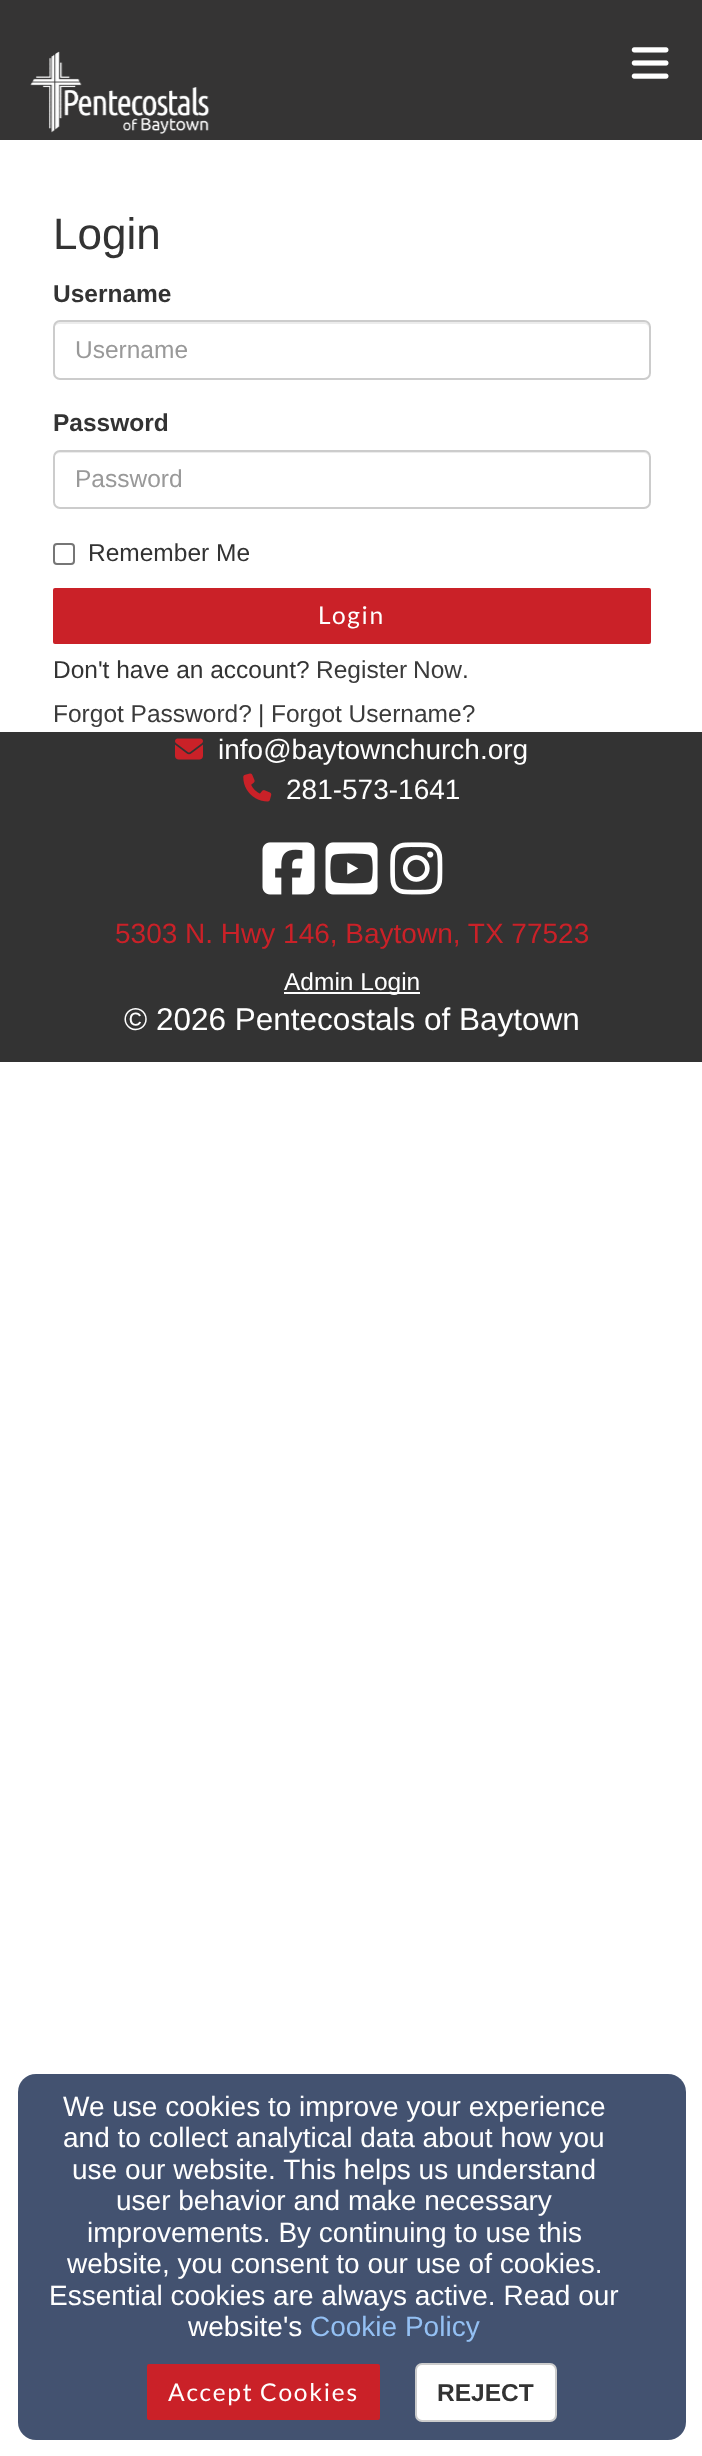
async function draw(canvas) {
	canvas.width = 702;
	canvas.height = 2456;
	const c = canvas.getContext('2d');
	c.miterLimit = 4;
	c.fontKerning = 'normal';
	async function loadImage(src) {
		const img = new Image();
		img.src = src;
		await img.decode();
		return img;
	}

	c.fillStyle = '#fff';
	c.fillRect(0, 0, 702, 2456);
	c.fillStyle = '#353434';
	c.fillRect(0, 0, 702, 140);
	c.drawImage(await loadImage('img1.png'), 30, 51, 180, 83);
	c.drawImage(await loadImage('img2.png'), 631, 47, 38, 32);
	c.font = '44px Liberation Sans';
	c.fillStyle = '#333';
	c.fillText('Login', 53, 249);
	c.font = 'bold 24.5px Liberation Sans';
	c.fillText('Username', 53, 302);
	c.fillStyle = '#ececec';
	c.beginPath();
	c.moveTo(60, 324);
	c.lineTo(644, 324);
	c.bezierCurveTo(647, 324, 649, 326, 649, 329);
	c.lineTo(649, 327);
	c.bezierCurveTo(649, 324, 647, 322, 644, 322);
	c.lineTo(59, 322);
	c.bezierCurveTo(56, 322, 54, 324, 54, 327);
	c.lineTo(54, 329);
	c.bezierCurveTo(54, 326, 57, 324, 60, 324);
	c.closePath();
	c.fill();
	c.beginPath();
	c.roundRect(54, 321, 596, 58, 6);
	c.strokeStyle = '#ccc';
	c.lineWidth = 2;
	c.stroke();
	c.font = '24.5px Liberation Sans';
	c.fillStyle = '#999';
	c.fillText('Username', 75, 358);
	c.font = 'bold 24.5px Liberation Sans';
	c.fillStyle = '#333';
	c.fillText('Password', 53, 431);
	c.fillStyle = '#ececec';
	c.beginPath();
	c.moveTo(60, 453);
	c.lineTo(644, 453);
	c.bezierCurveTo(647, 453, 649, 456, 649, 458);
	c.lineTo(649, 457);
	c.bezierCurveTo(649, 454, 647, 452, 644, 452);
	c.lineTo(59, 452);
	c.bezierCurveTo(56, 452, 54, 454, 54, 457);
	c.lineTo(54, 458);
	c.bezierCurveTo(54, 456, 57, 453, 60, 453);
	c.closePath();
	c.fill();
	c.beginPath();
	c.roundRect(54, 451, 596, 57, 6);
	c.stroke();
	c.font = '24.5px Liberation Sans';
	c.fillStyle = '#999';
	c.fillText('Password', 75, 487);
	c.beginPath();
	c.roundRect(54, 544, 20, 20, 3);
	c.strokeStyle = '#767676';
	c.stroke();
	c.fillStyle = '#333';
	c.fillText('Remember Me', 88, 561);
	c.fillStyle = '#ca2128';
	c.beginPath();
	c.roundRect(53, 588, 598, 56, 2);
	c.fill();
	c.letterSpacing = '1.75px';
	c.font = '24.5px Lato';
	c.fillStyle = '#fff';
	c.fillText('Login', 318, 624);
	c.letterSpacing = '0px';
	c.font = '24.5px Liberation Sans';
	c.fillStyle = '#333';
	c.fillText('Don\'t have an account?', 53, 678);
	c.wordSpacing = '-1px';
	c.fillStyle = '#3b3b3b';
	c.fillText('Register Now', 316, 678);
	c.wordSpacing = '0px';
	c.fillStyle = '#333';
	c.fillText('.', 462, 678);
	c.fillStyle = '#3b3b3b';
	c.fillText('Forgot Password?', 53, 722);
	c.fillStyle = '#333';
	c.fillText('|', 258, 722);
	c.fillStyle = '#3b3b3b';
	c.fillText('Forgot Username?', 271, 722);
	c.fillStyle = '#333';
	c.fillRect(0, 732, 702, 330);
	c.drawImage(await loadImage('img3.png'), 175, 738, 28, 22);
	c.font = '28px Liberation Sans';
	c.fillStyle = '#fff';
	c.fillText('info@baytownchurch.org', 218, 759);
	c.drawImage(await loadImage('img4.png'), 243, 773, 29, 29);
	c.fillText('281-573-1641', 286, 799);
	c.drawImage(await loadImage('img5.png'), 262, 842, 53, 53);
	c.drawImage(await loadImage('img6.png'), 325, 842, 53, 53);
	c.drawImage(await loadImage('img7.png'), 390, 842, 53, 53);
	c.fillStyle = '#ca2128';
	c.fillText('5303 N. Hwy 146, Baytown, TX 77523', 115, 943);
	c.fillStyle = '#fff';
	c.fillRect(284, 992, 136, 2);
	c.font = '24.5px Liberation Sans';
	c.fillText('Admin Login', 284, 990);
	c.font = '31.5px Liberation Sans';
	c.fillText('© 2026 Pentecostals of Baytown', 124, 1030);
	c.fillStyle = '#435270';
	c.beginPath();
	c.roundRect(18, 2074, 668, 366, 18);
	c.fill();
	c.font = '28px Liberation Sans';
	c.fillStyle = '#fff';
	for (const [text, x, y] of [
		['We use cookies to improve your experience', 63, 2116],
		['and to collect analytical data about how you', 63, 2147],
		['use our website. This helps us understand', 72, 2179],
		['user behavior and make necessary', 116, 2210],
		['improvements. By continuing to use this', 87, 2242],
		['website, you consent to our use of cookies.', 67, 2273],
		['Essential cookies are always active. Read our', 49, 2305],
		['website\'s', 188, 2336],
	]) {
		c.fillText(text, x, y);
	}
	c.fillStyle = '#94c0f3';
	c.fillText('Cookie Policy', 310, 2336);
	c.fillStyle = '#ca2128';
	c.beginPath();
	c.roundRect(147, 2364, 233, 56, 2);
	c.fill();
	c.letterSpacing = '1.75px';
	c.font = '24.5px Lato';
	c.fillStyle = '#fff';
	c.fillText('Accept Cookies', 168, 2401);
	c.beginPath();
	c.roundRect(416, 2364, 140, 57, 6);
	c.fill();
	c.strokeStyle = '#ccc';
	c.stroke();
	c.letterSpacing = '0px';
	c.font = 'bold 24.5px Liberation Sans';
	c.fillStyle = '#333';
	c.fillText('REJECT', 437, 2401);
}

draw(document.querySelector('canvas'));
